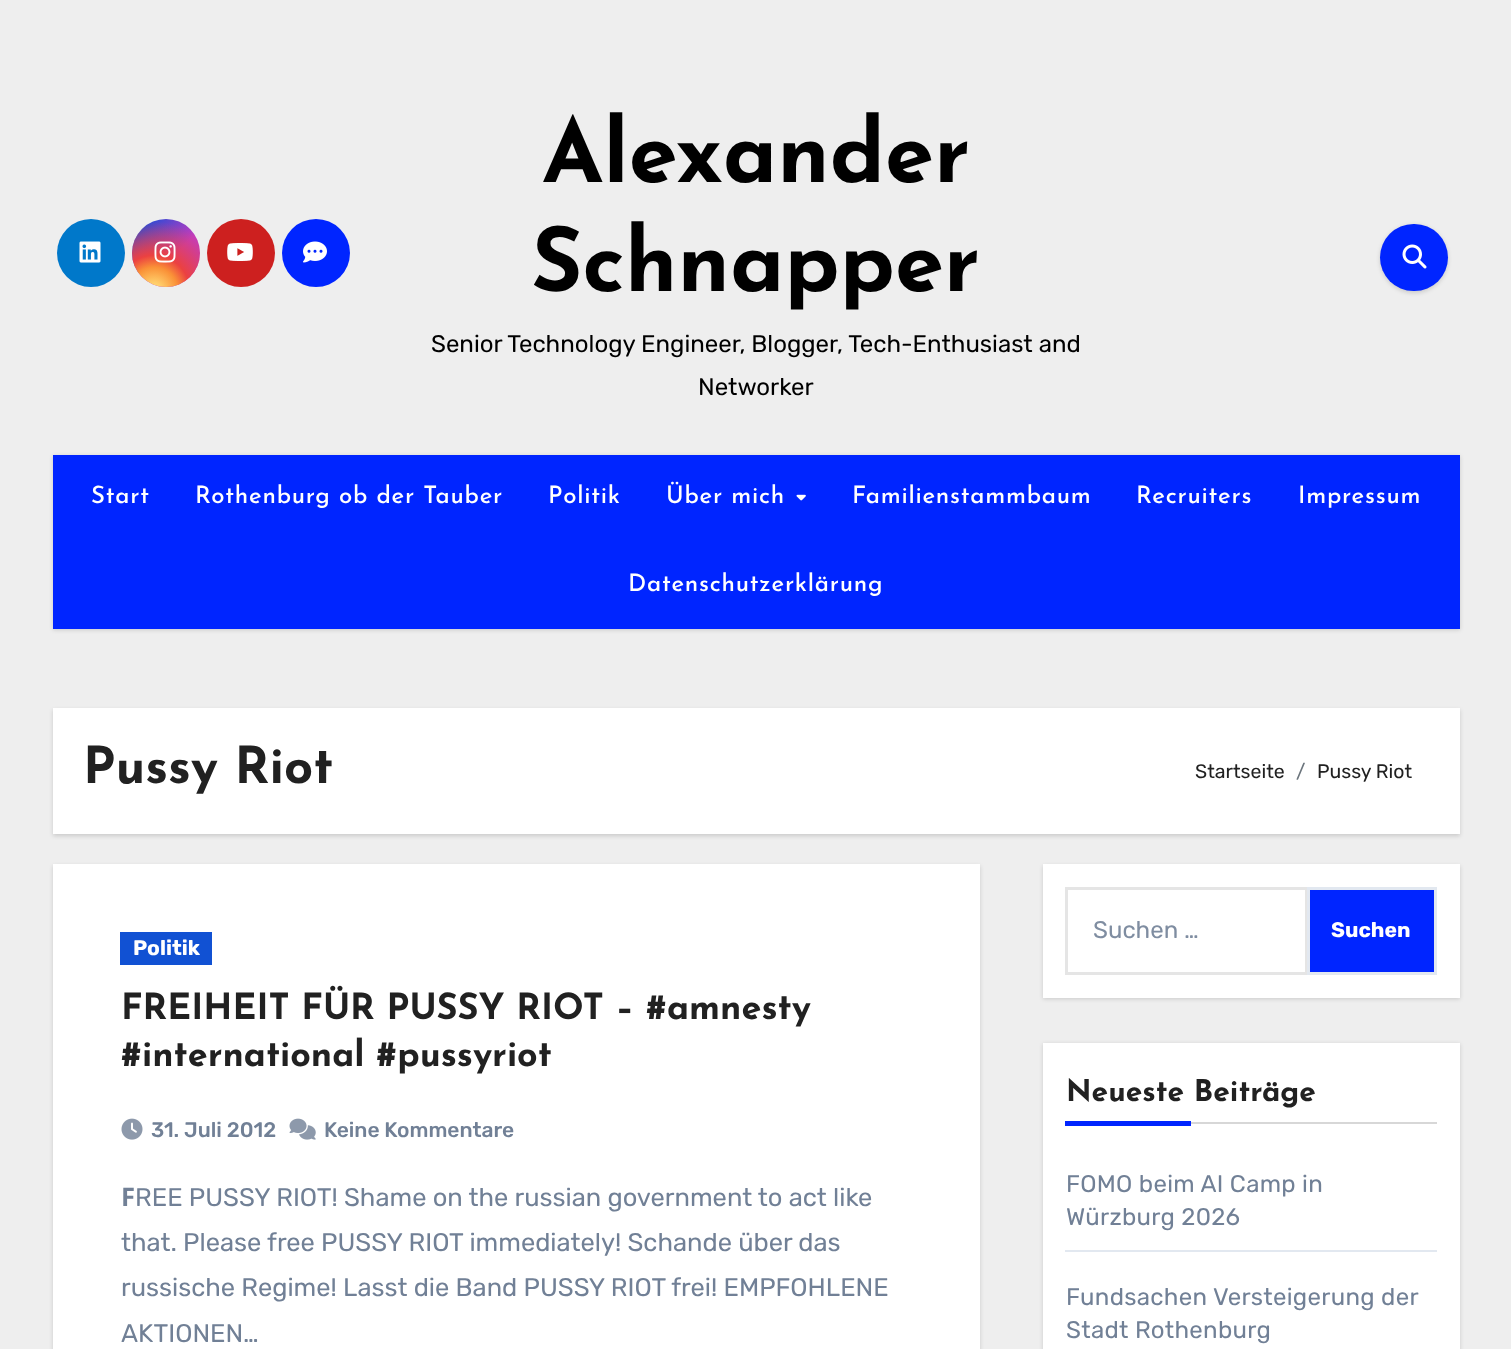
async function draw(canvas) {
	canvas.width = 1511;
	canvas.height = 1349;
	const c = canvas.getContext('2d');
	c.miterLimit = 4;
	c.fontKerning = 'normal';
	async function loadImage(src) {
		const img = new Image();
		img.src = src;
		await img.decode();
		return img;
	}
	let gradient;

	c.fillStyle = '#eee';
	c.fillRect(0, 0, 1511, 1349);
	c.fillStyle = '#0078ca';
	c.beginPath();
	c.arc(91, 253, 34, 0, 2 * Math.PI);
	c.fill();
	c.drawImage(await loadImage('img1.png'), 79, 241, 22, 22);
	gradient = c.createLinearGradient(132, 219, 200, 287);
	gradient.addColorStop(0.12, '#234bd7');
	gradient.addColorStop(0.58, '#c33cbe');
	c.fillStyle = gradient;
	c.beginPath();
	c.arc(166, 253, 34, 0, 2 * Math.PI);
	c.fill();
	gradient = c.createRadialGradient(154, 291, 0, 154, 291, 85);
	gradient.addColorStop(0, '#ffe17d');
	gradient.addColorStop(0.1, '#ffcd69');
	gradient.addColorStop(0.28, '#fa9137');
	gradient.addColorStop(0.42, '#eb4141');
	gradient.addColorStop(0.82, '#eb414100');
	c.fillStyle = gradient;
	c.beginPath();
	c.arc(166, 253, 34, 0, 2 * Math.PI);
	c.fill();
	c.drawImage(await loadImage('img2.png'), 154, 241, 22, 22);
	c.fillStyle = '#cd201f';
	c.beginPath();
	c.arc(241, 253, 34, 0, 2 * Math.PI);
	c.fill();
	c.drawImage(await loadImage('img3.png'), 227, 243, 26, 18);
	c.fillStyle = '#0025ff';
	c.beginPath();
	c.arc(316, 253, 34, 0, 2 * Math.PI);
	c.fill();
	c.drawImage(await loadImage('img4.png'), 303, 241, 24, 22);
	c.font = 'bold 88.5px Josefin Sans';
	c.fillStyle = '#000';
	c.fillText('Alexander', 542, 182);
	c.fillText('Schnapper', 531, 291);
	c.font = '300 24px Rubik';
	c.fillText('Senior Technology Engineer, Blogger, Tech-Enthusiast and', 431, 352);
	c.fillText('Networker', 698, 395);
	c.fillStyle = '#00000026';
	c.filter = 'blur(2px)';
	c.beginPath();
	c.roundRect(1380, 225, 68, 68, 34);
	c.fill();
	c.filter = 'none';
	c.fillStyle = '#0025ff';
	c.beginPath();
	c.roundRect(1380, 224, 68, 67, 33.5);
	c.fill();
	c.drawImage(await loadImage('img5.png'), 1402, 244, 25, 25);
	c.fillStyle = '#00000026';
	c.filter = 'blur(2px)';
	c.beginPath();
	c.rect(53, 456, 1407, 174);
	c.fill();
	c.filter = 'none';
	c.fillStyle = '#0025ff';
	c.fillRect(53, 455, 1407, 174);
	c.letterSpacing = '0.75px';
	c.font = '500 24px Josefin Sans';
	c.fillStyle = '#fff';
	for (const [text, x, y] of [
		['Start', 91, 503],
		['Rothenburg ob der Tauber', 195, 503],
		['Politik', 548, 503],
		['Über mich', 666, 503],
	]) {
		c.fillText(text, x, y);
	}
	c.drawImage(await loadImage('img6.png'), 796, 494, 10, 7);
	for (const [text, x, y] of [
		['Familienstammbaum', 852, 503],
		['Recruiters', 1136, 503],
		['Impressum', 1298, 503],
		['Datenschutzerklärung', 628, 591],
	]) {
		c.fillText(text, x, y);
	}
	c.fillStyle = '#00000026';
	c.filter = 'blur(2px)';
	c.beginPath();
	c.rect(53, 710, 1407, 126);
	c.fill();
	c.filter = 'none';
	c.fillStyle = '#fff';
	c.fillRect(53, 708, 1407, 126);
	c.letterSpacing = '0px';
	c.font = 'bold 51px Josefin Sans';
	c.fillStyle = '#212121';
	c.fillText('Pussy Riot', 83, 783);
	c.font = '300 19.5px Rubik';
	c.fillText('Startseite', 1195, 778);
	c.fillStyle = '#6c757d';
	c.fillText('/', 1296, 778);
	c.fillStyle = '#212121';
	c.fillText('Pussy Riot', 1317, 778);
	c.fillStyle = '#00000026';
	c.filter = 'blur(2px)';
	c.beginPath();
	c.rect(53, 866, 927, 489);
	c.fill();
	c.filter = 'none';
	c.fillStyle = '#fff';
	c.fillRect(53, 864, 927, 485);
	c.fillStyle = '#1151d3';
	c.fillRect(120, 932, 92, 33);
	c.font = 'bold 21px Rubik';
	c.fillStyle = '#fff';
	c.fillText('Politik', 133, 955);
	c.font = 'bold 36px Josefin Sans';
	c.fillStyle = '#212121';
	c.fillText('FREIHEIT FÜR PUSSY RIOT – #amnesty', 121, 1019);
	c.fillText('#international #pussyriot', 121, 1066);
	c.drawImage(await loadImage('img7.png'), 121, 1118, 22, 22);
	c.font = '500 21px Rubik';
	c.fillStyle = '#718096';
	c.fillText('31. Juli 2012', 151, 1137);
	c.drawImage(await loadImage('img8.png'), 289, 1118, 27, 22);
	c.fillText('Keine Kommentare', 324, 1137);
	c.font = 'bold 25.5px Noto Sans';
	c.fillText('F', 121, 1206);
	c.font = '300 25.5px Rubik';
	for (const [text, x, y] of [
		['REE PUSSY RIOT! Shame on the russian government to act like', 135, 1206],
		['that. Please free PUSSY RIOT immediately! Schande über das', 121, 1251],
		['russische Regime! Lasst die Band PUSSY RIOT frei! EMPFOHLENE', 121, 1296],
		['AKTIONEN…', 121, 1342],
	]) {
		c.fillText(text, x, y);
	}
	c.fillStyle = '#00000026';
	c.filter = 'blur(2px)';
	c.beginPath();
	c.rect(1043, 866, 417, 133);
	c.fill();
	c.filter = 'none';
	c.fillStyle = '#fff';
	c.fillRect(1043, 864, 417, 134);
	c.strokeStyle = '#e5e5e5';
	c.lineWidth = 3;
	c.strokeRect(1066.5, 888.5, 240, 85);
	c.font = '300 24px Rubik';
	c.fillStyle = '#7f8da1';
	c.fillText('Suchen …', 1093, 938);
	c.fillStyle = '#0025ff';
	c.beginPath();
	c.rect(1308.5, 888.5, 127, 85);
	c.fill();
	c.strokeStyle = '#e2e8f0';
	c.stroke();
	c.font = 'bold 21px Rubik';
	c.fillStyle = '#fff';
	c.fillText('Suchen', 1331, 937);
	c.fillStyle = '#00000026';
	c.filter = 'blur(2px)';
	c.beginPath();
	c.rect(1043, 1044, 417, 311);
	c.fill();
	c.filter = 'none';
	c.fillStyle = '#fff';
	c.fillRect(1043, 1043, 417, 306);
	c.fillStyle = '#d7d7d7';
	c.fillRect(1191, 1122, 246, 2);
	c.font = 'bold 30px Josefin Sans';
	c.fillStyle = '#212121';
	c.fillText('Neueste Beiträge', 1066, 1101);
	c.fillStyle = '#0025ff';
	c.fillRect(1065, 1121, 126, 5);
	c.fillStyle = '#e2e8f0';
	c.fillRect(1065, 1250, 372, 2);
	c.letterSpacing = '0.3px';
	c.font = '300 24px Rubik';
	c.fillStyle = '#718096';
	for (const [text, x, y] of [
		['FOMO beim AI Camp in', 1066, 1192],
		['Würzburg 2026', 1066, 1225],
		['Fundsachen Versteigerung der', 1066, 1305],
		['Stadt Rothenburg', 1066, 1338],
	]) {
		c.fillText(text, x, y);
	}
}

draw(document.querySelector('canvas'));
